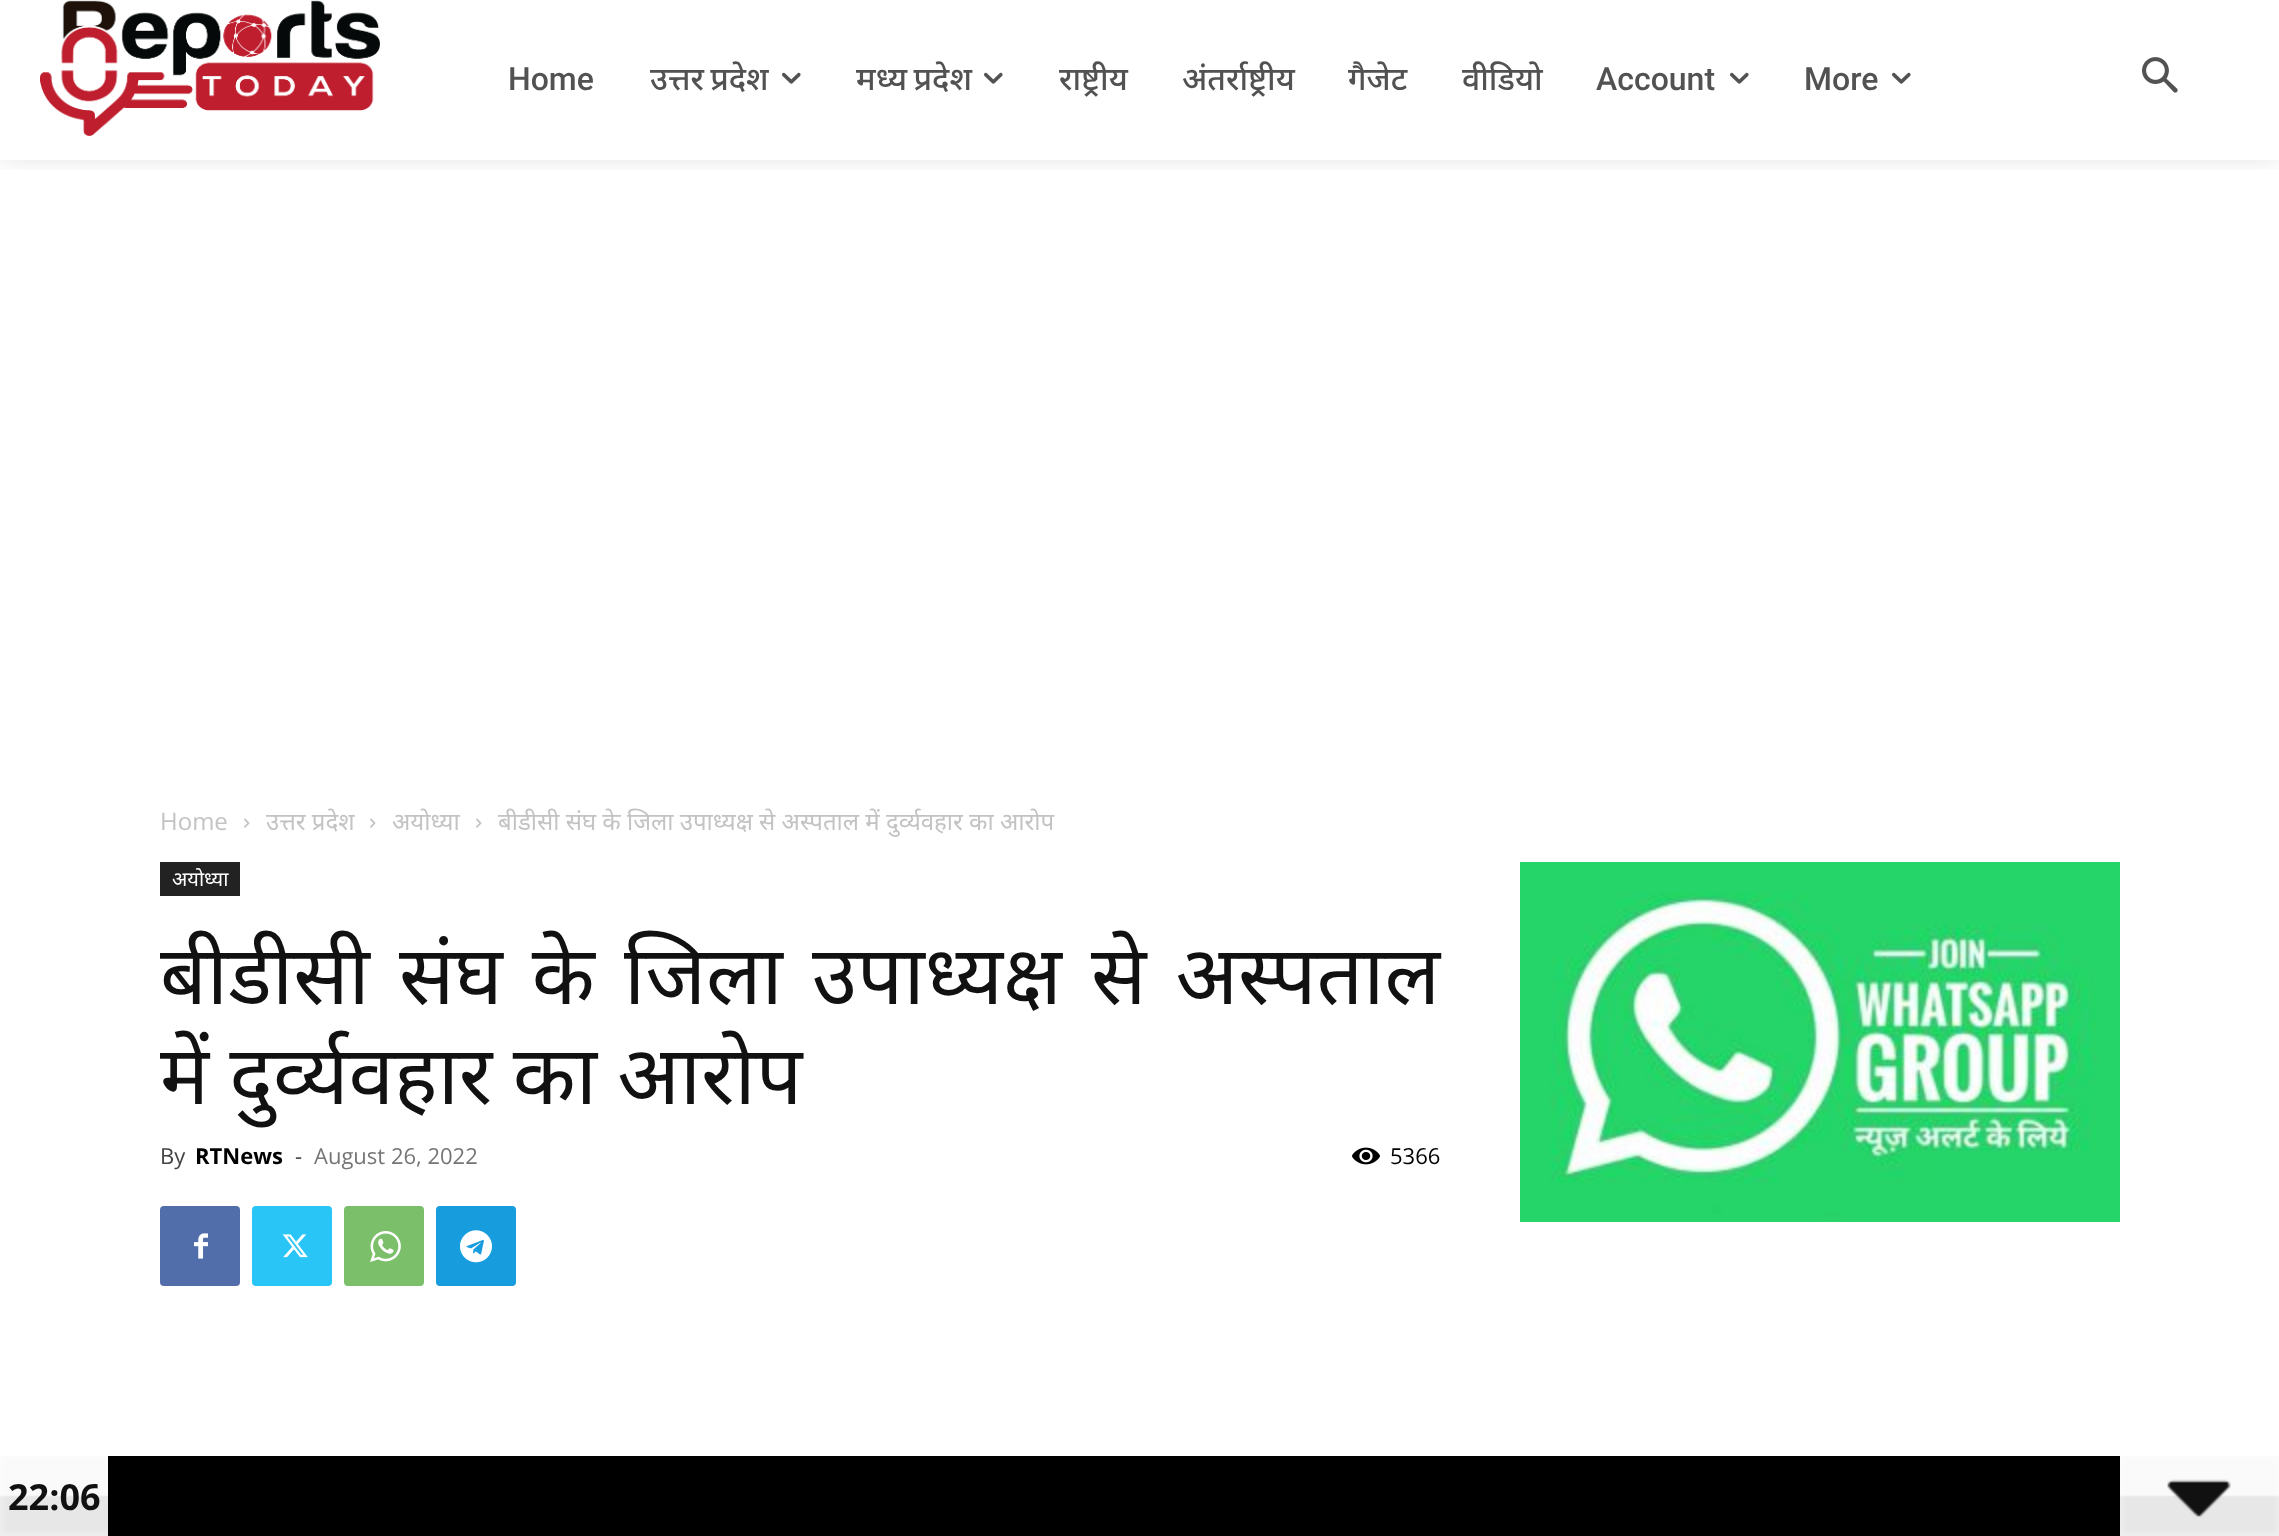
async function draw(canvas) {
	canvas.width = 2279;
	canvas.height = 1536;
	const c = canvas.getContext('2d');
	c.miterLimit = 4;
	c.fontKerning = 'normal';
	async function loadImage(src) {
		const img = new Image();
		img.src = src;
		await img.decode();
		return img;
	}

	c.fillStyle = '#fff';
	c.fillRect(0, 0, 2279, 1536);
	c.save();
	c.beginPath();
	c.rect(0, 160, 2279, 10);
	c.clip();
	c.fillStyle = '#0000001a';
	c.filter = 'blur(12px)';
	c.beginPath();
	c.rect(0, 0, 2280, 160);
	c.fill();
	c.filter = 'none';
	c.restore();
	c.drawImage(await loadImage('img1.png'), 40, 0, 340, 136);
	c.font = '500 32px Roboto';
	c.fillStyle = '#525252';
	c.fillText('Home', 508, 90);
	c.wordSpacing = '-2px';
	c.font = '500 32px Noto Sans';
	c.fillText('उत्तर प्रदेश', 650, 90);
	c.drawImage(await loadImage('img2.png'), 782, 72, 19, 12);
	c.fillText('मध्य प्रदेश', 856, 90);
	c.drawImage(await loadImage('img2.png'), 984, 72, 19, 12);
	c.wordSpacing = '0px';
	for (const [text, x, y] of [
		['राष्ट्रीय', 1059, 90],
		['अंतर्राष्ट्रीय', 1182, 90],
		['गैजेट', 1348, 90],
		['वीडियो', 1462, 90],
	]) {
		c.fillText(text, x, y);
	}
	c.font = '500 32px Roboto';
	c.fillText('Account', 1596, 90);
	c.drawImage(await loadImage('img2.png'), 1730, 72, 19, 12);
	c.fillText('More', 1804, 90);
	c.drawImage(await loadImage('img2.png'), 1892, 72, 19, 12);
	c.drawImage(await loadImage('img3.png'), 2142, 57, 36, 36);
	c.font = '24px Open Sans';
	c.fillStyle = '#c3c3c3';
	c.fillText('Home', 160, 830);
	c.drawImage(await loadImage('img4.png'), 244, 818, 6, 10);
	c.font = '24px Noto Sans';
	c.fillText('उत्तर प्रदेश', 266, 830);
	c.drawImage(await loadImage('img4.png'), 370, 818, 6, 10);
	c.fillText('अयोध्या', 392, 830);
	c.drawImage(await loadImage('img4.png'), 476, 818, 6, 10);
	c.fillText('बीडीसी संघ के जिला उपाध्यक्ष से अस्पताल में दुर्व्यवहार का आरोप', 498, 830);
	c.fillStyle = '#222';
	c.fillRect(160, 862, 80, 34);
	c.font = '20px Noto Sans';
	c.fillStyle = '#fff';
	c.fillText('अयोध्या', 172, 886);
	c.wordSpacing = '7.75px';
	c.font = '82px Noto Sans';
	c.fillStyle = '#111';
	c.fillText('बीडीसी संघ के जिला उपाध्यक्ष से अस्पताल', 160, 1004);
	c.wordSpacing = '-1px';
	c.fillText('में दुर्व्यवहार का आरोप', 160, 1104);
	c.wordSpacing = '0px';
	c.font = '22px Open Sans';
	c.fillStyle = '#444';
	c.fillText('By', 160, 1164);
	c.font = 'bold 22px Open Sans';
	c.fillStyle = '#000';
	c.fillText('RTNews', 195, 1164);
	c.font = '22px Open Sans';
	c.fillStyle = '#444';
	c.fillText('-', 295, 1164);
	c.fillStyle = '#767676';
	c.fillText('August 26, 2022', 314, 1164);
	c.drawImage(await loadImage('img5.png'), 1352, 1147, 28, 18);
	c.fillStyle = '#000';
	c.fillText('5366', 1390, 1164);
	c.fillStyle = '#516eab';
	c.beginPath();
	c.roundRect(160, 1206, 80, 80, 4);
	c.fill();
	c.drawImage(await loadImage('img6.png'), 194, 1233, 14, 26);
	c.fillStyle = '#29c5f6';
	c.beginPath();
	c.roundRect(252, 1206, 80, 80, 4);
	c.fill();
	c.drawImage(await loadImage('img7.png'), 282, 1234, 26, 24);
	c.fillStyle = '#7bbf6a';
	c.beginPath();
	c.roundRect(344, 1206, 80, 80, 4);
	c.fill();
	c.drawImage(await loadImage('img8.png'), 370, 1231, 31, 31);
	c.fillStyle = '#179cde';
	c.beginPath();
	c.roundRect(436, 1206, 80, 80, 4);
	c.fill();
	c.drawImage(await loadImage('img9.png'), 460, 1230, 32, 33);
	c.drawImage(await loadImage('img10.png'), 1520, 862, 600, 360);
	c.drawImage(await loadImage('img11.png'), 0, 1456, 108, 80);
	c.font = 'bold 36px Open Sans';
	c.fillStyle = '#111';
	c.fillText('22:06', 8, 1510);
	c.fillStyle = '#000';
	c.fillRect(108, 1456, 2012, 80);
	c.drawImage(await loadImage('img12.png'), 2120, 1456, 159, 80);
}

draw(document.querySelector('canvas'));
